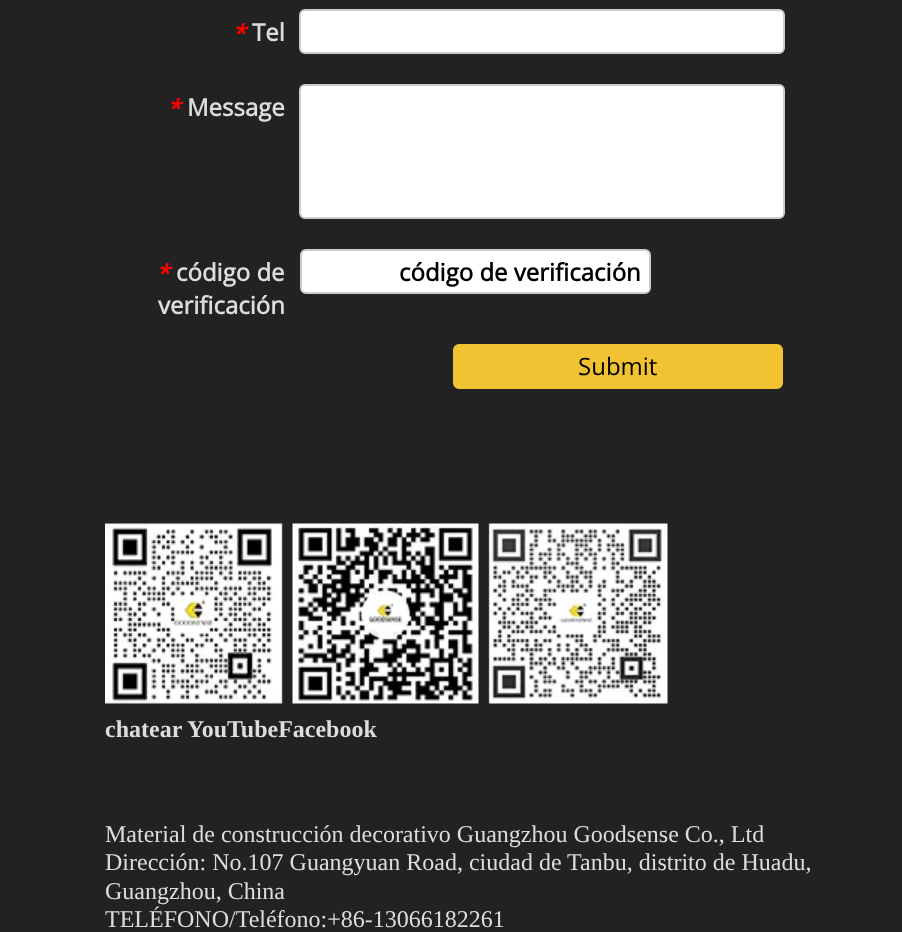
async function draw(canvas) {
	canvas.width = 902;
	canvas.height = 932;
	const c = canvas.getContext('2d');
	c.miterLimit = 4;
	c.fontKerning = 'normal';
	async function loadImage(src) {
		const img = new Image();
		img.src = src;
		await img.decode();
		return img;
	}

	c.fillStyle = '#222';
	c.fillRect(0, 0, 902, 932);
	c.font = 'italic bold 24px Open Sans';
	c.fillStyle = '#f00';
	c.fillText('*', 232, 42);
	c.font = 'bold 24px Open Sans';
	c.fillStyle = '#ddd';
	c.fillText('Tel', 252, 41);
	c.fillStyle = '#fff';
	c.beginPath();
	c.roundRect(300, 10, 484, 43, 5);
	c.fill();
	c.strokeStyle = '#ccc';
	c.lineWidth = 2;
	c.stroke();
	c.font = 'italic bold 24px Open Sans';
	c.fillStyle = '#f00';
	c.fillText('*', 167, 117);
	c.font = 'bold 24px Open Sans';
	c.fillStyle = '#ddd';
	c.fillText('Message', 187, 116);
	c.fillStyle = '#fff';
	c.beginPath();
	c.roundRect(300, 85, 484, 133, 5);
	c.fill();
	c.stroke();
	c.font = 'italic bold 24px Open Sans';
	c.fillStyle = '#f00';
	c.fillText('*', 156, 282);
	c.font = 'bold 24px Open Sans';
	c.fillStyle = '#ddd';
	c.fillText('código de', 176, 281);
	c.fillText('verificación', 158, 314);
	c.fillStyle = '#fff';
	c.beginPath();
	c.roundRect(301, 250, 349, 43, 5);
	c.fill();
	c.stroke();
	c.fillStyle = '#000';
	c.fillText('código de verificación', 399, 281);
	c.fillStyle = '#f1c232';
	c.beginPath();
	c.roundRect(454, 345, 328, 43, 5);
	c.fill();
	c.strokeStyle = '#f1c232';
	c.stroke();
	c.font = '24px Open Sans';
	c.fillStyle = '#000';
	c.fillText('Submit', 578, 375);
	c.drawImage(await loadImage('img1.png'), 105, 523, 563, 181);
	c.font = 'bold 24px Liberation Serif';
	c.fillStyle = '#ddd';
	c.fillText('chatear YouTubeFacebook', 105, 737);
	c.font = '24px Liberation Serif';
	for (const [text, x, y] of [
		['Material de construcción decorativo Guangzhou Goodsense Co., Ltd', 105, 842],
		['Dirección: No.107 Guangyuan Road, ciudad de Tanbu, distrito de Huadu,', 105, 870],
		['Guangzhou, China', 105, 899],
		['TELÉFONO/Teléfono:+86-13066182261', 105, 927],
	]) {
		c.fillText(text, x, y);
	}
}

draw(document.querySelector('canvas'));
